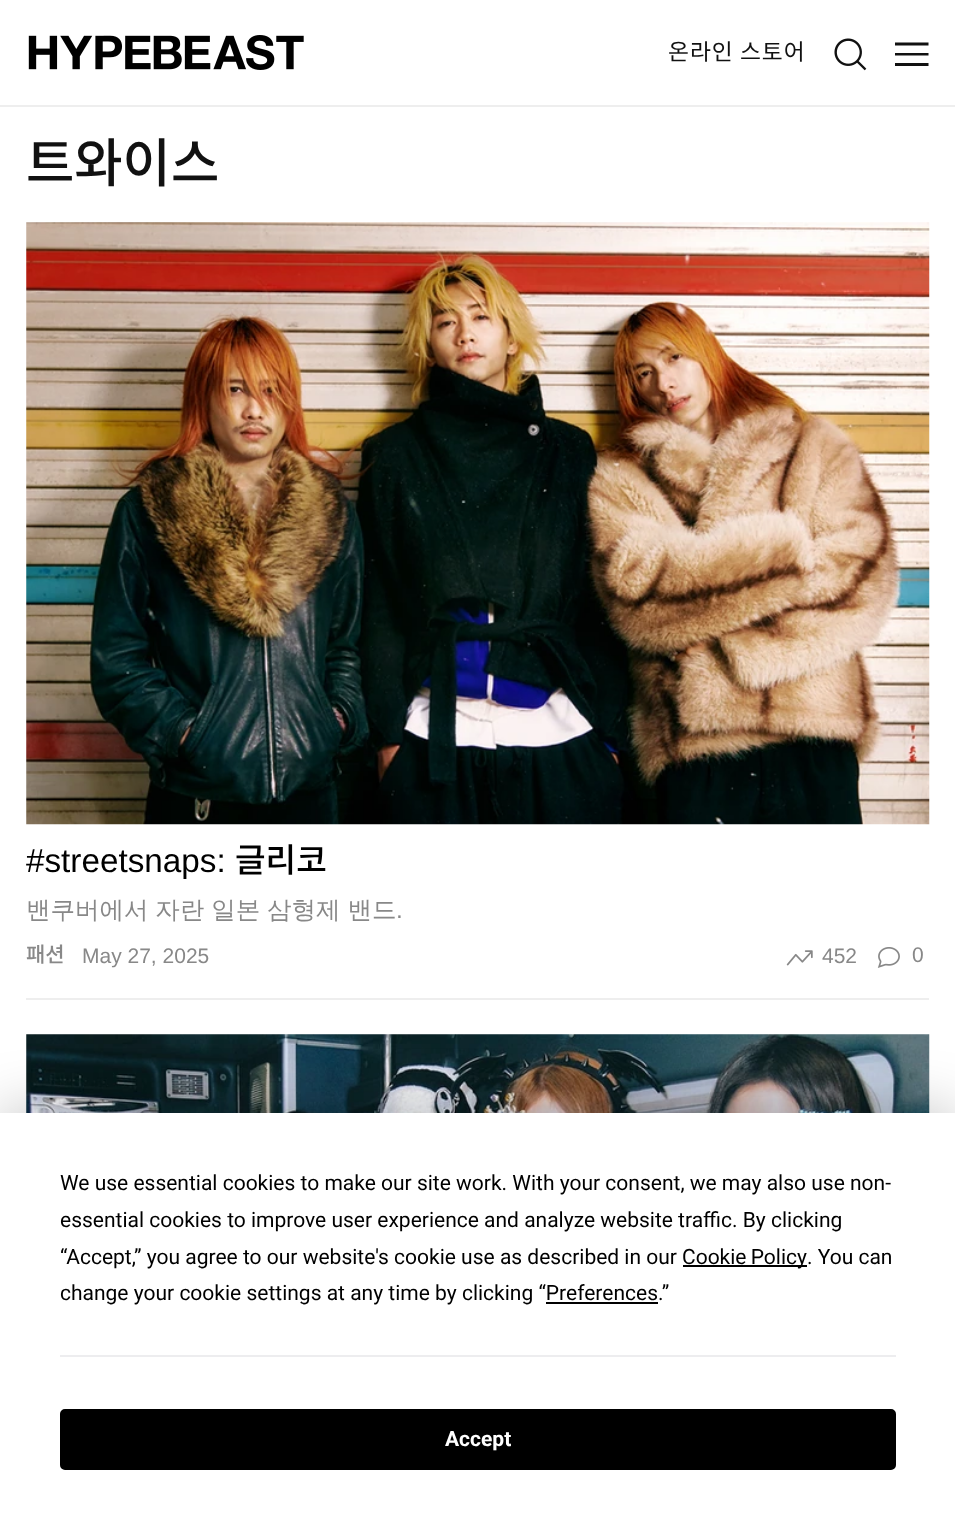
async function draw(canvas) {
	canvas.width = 955;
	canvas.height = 1521;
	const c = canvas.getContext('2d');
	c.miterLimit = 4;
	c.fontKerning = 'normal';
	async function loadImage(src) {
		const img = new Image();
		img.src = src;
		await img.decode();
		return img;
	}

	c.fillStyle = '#fff';
	c.fillRect(0, 0, 955, 1521);
	c.fillStyle = '#eee';
	c.fillRect(0, 105, 955, 2);
	c.drawImage(await loadImage('img1.png'), 28, 35, 276, 35);
	c.letterSpacing = '1px';
	c.font = '22.75px Noto Sans KR';
	c.fillStyle = '#111';
	c.fillText('온라인 스토어', 668, 60);
	c.drawImage(await loadImage('img2.png'), 834, 38, 33, 33);
	c.beginPath();
	c.moveTo(895, 42.5);
	c.lineTo(928.5, 42.5);
	c.lineTo(928.5, 45.5);
	c.lineTo(895, 45.5);
	c.closePath();
	c.moveTo(895, 53);
	c.lineTo(928.5, 53);
	c.lineTo(928.5, 55.5);
	c.lineTo(895, 55.5);
	c.closePath();
	c.moveTo(895, 63);
	c.lineTo(928.5, 63);
	c.lineTo(928.5, 66);
	c.lineTo(895, 66);
	c.closePath();
	c.fill();
	c.letterSpacing = '0px';
	c.font = '500 52.5px Noto Sans KR';
	c.fillText('트와이스', 26, 182);
	c.drawImage(await loadImage('img3.png'), 26, 222, 904, 603);
	c.font = '33.25px Liberation Sans';
	c.fillStyle = '#000';
	c.fillText('#streetsnaps:', 26, 872);
	c.font = '500 33.25px Noto Sans KR';
	c.fillText('글리코', 235, 872);
	c.wordSpacing = '-0.5px';
	c.font = '500 24.5px WenQuanYi Zen Hei';
	c.fillStyle = '#888';
	c.fillText('밴쿠버에서 자란 일본 삼형제 밴드', 26, 918);
	c.wordSpacing = '0px';
	c.font = '24.5px Liberation Sans';
	c.fillText('.', 396, 918);
	c.font = '500 21px Noto Sans KR';
	c.fillText('패션', 26, 962);
	c.font = '21px Liberation Sans';
	c.fillText('May 27, 2025', 82, 963);
	c.drawImage(await loadImage('img4.png'), 786, 950, 27, 16);
	c.fillText('452', 822, 963);
	c.drawImage(await loadImage('img5.png'), 877, 947, 23, 21);
	c.fillText('0', 912, 962);
	c.fillStyle = '#eee';
	c.fillRect(26, 998, 903, 2);
	c.drawImage(await loadImage('img6.png'), 26, 1034, 904, 79);
	c.fillStyle = '#00000040';
	c.filter = 'blur(30.5px)';
	c.beginPath();
	c.rect(0, 1113, 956, 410);
	c.fill();
	c.filter = 'none';
	c.fillStyle = '#fff';
	c.fillRect(0, 1113, 955, 408);
	c.font = '21px Roboto';
	c.fillStyle = '#000';
	for (const [text, x, y] of [
		['We use essential cookies to make our site work. With your consent, we may also use non-', 60, 1190],
		['essential cookies to improve user experience and analyze website traffic. By clicking', 60, 1227],
		['“Accept,” you agree to our website\'s cookie use as described in our', 60, 1264],
	]) {
		c.fillText(text, x, y);
	}
	c.fillRect(683, 1265, 124, 2);
	c.wordSpacing = '-1px';
	c.fillText('Cookie Policy', 682, 1264);
	c.wordSpacing = '0px';
	c.fillText('. You can', 807, 1264);
	c.fillText('change your cookie settings at any time by clicking “Preferences.”', 60, 1300);
	c.fillRect(546, 1302, 112, 2);
	c.fillStyle = '#ededef';
	c.fillRect(60, 1355, 836, 2);
	c.fillStyle = '#000';
	c.beginPath();
	c.roundRect(61, 1410, 834, 59, 4);
	c.fill();
	c.strokeStyle = '#000';
	c.lineWidth = 2;
	c.stroke();
	c.font = 'bold 21px Roboto';
	c.fillStyle = '#fff';
	c.fillText('Accept', 445, 1446);
}

draw(document.querySelector('canvas'));
